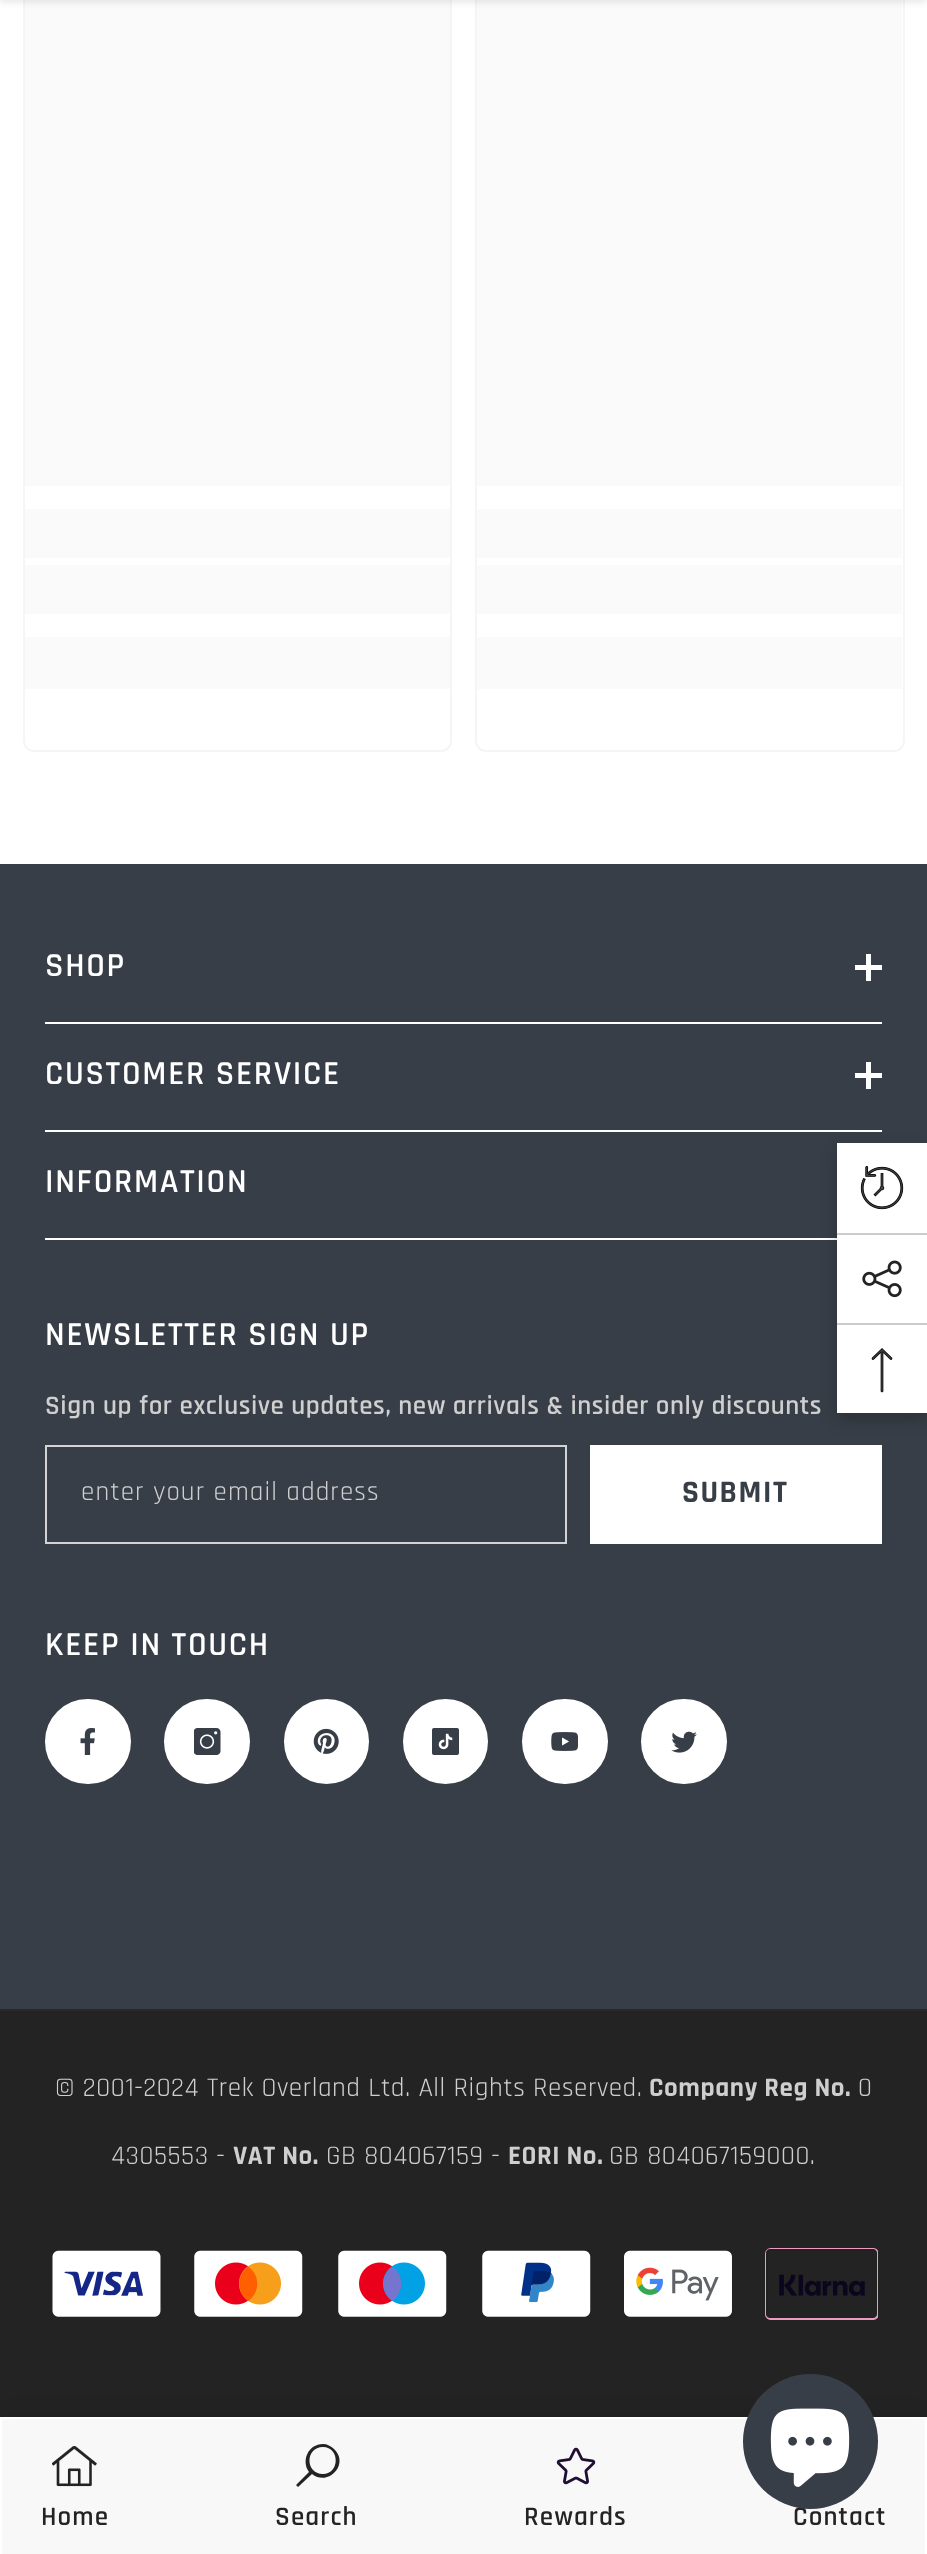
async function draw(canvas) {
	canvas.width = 927;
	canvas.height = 2554;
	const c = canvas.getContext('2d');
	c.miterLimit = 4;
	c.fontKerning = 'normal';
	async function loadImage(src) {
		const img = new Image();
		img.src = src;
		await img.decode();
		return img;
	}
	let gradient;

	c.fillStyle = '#fff';
	c.fillRect(0, 0, 927, 2554);
	c.beginPath();
	c.roundRect(24, -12, 427, 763, 10);
	c.strokeStyle = '#f5f5f5';
	c.lineWidth = 2;
	c.stroke();
	gradient = c.createLinearGradient(-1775, 203, 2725, 202);
	gradient.addColorStop(0.04, '#fafafa');
	gradient.addColorStop(0.25, '#f1f2f3');
	gradient.addColorStop(0.36, '#fafafa');
	c.fillStyle = gradient;
	c.fillRect(25, 0, 425, 486);
	gradient = c.createLinearGradient(-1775, 533, 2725, 533);
	gradient.addColorStop(0.04, '#fafafa');
	gradient.addColorStop(0.25, '#f1f2f3');
	gradient.addColorStop(0.36, '#fafafa');
	c.fillStyle = gradient;
	c.fillRect(25, 509, 425, 49);
	gradient = c.createLinearGradient(-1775, 590, 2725, 589);
	gradient.addColorStop(0.04, '#fafafa');
	gradient.addColorStop(0.25, '#f1f2f3');
	gradient.addColorStop(0.36, '#fafafa');
	c.fillStyle = gradient;
	c.fillRect(25, 565, 425, 49);
	gradient = c.createLinearGradient(-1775, 663, 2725, 663);
	gradient.addColorStop(0.04, '#fafafa');
	gradient.addColorStop(0.25, '#f1f2f3');
	gradient.addColorStop(0.36, '#fafafa');
	c.fillStyle = gradient;
	c.fillRect(25, 637, 425, 52);
	c.beginPath();
	c.roundRect(476, -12, 428, 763, 10);
	c.stroke();
	gradient = c.createLinearGradient(-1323, 203, 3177, 202);
	gradient.addColorStop(0.04, '#fafafa');
	gradient.addColorStop(0.25, '#f1f2f3');
	gradient.addColorStop(0.36, '#fafafa');
	c.fillStyle = gradient;
	c.fillRect(477, 0, 425, 486);
	gradient = c.createLinearGradient(-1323, 533, 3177, 533);
	gradient.addColorStop(0.04, '#fafafa');
	gradient.addColorStop(0.25, '#f1f2f3');
	gradient.addColorStop(0.36, '#fafafa');
	c.fillStyle = gradient;
	c.fillRect(477, 509, 425, 49);
	gradient = c.createLinearGradient(-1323, 590, 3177, 589);
	gradient.addColorStop(0.04, '#fafafa');
	gradient.addColorStop(0.25, '#f1f2f3');
	gradient.addColorStop(0.36, '#fafafa');
	c.fillStyle = gradient;
	c.fillRect(477, 565, 425, 49);
	gradient = c.createLinearGradient(-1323, 663, 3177, 663);
	gradient.addColorStop(0.04, '#fafafa');
	gradient.addColorStop(0.25, '#f1f2f3');
	gradient.addColorStop(0.36, '#fafafa');
	c.fillStyle = gradient;
	c.fillRect(477, 637, 425, 52);
	c.fillStyle = '#0000001a';
	c.filter = 'blur(3.5px)';
	c.beginPath();
	c.rect(0, -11, 927, 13);
	c.fill();
	c.filter = 'none';
	c.fillStyle = '#383e47';
	c.fillRect(0, 864, 927, 1145);
	c.fillStyle = '#fff';
	c.fillRect(45, 1022, 837, 2);
	c.letterSpacing = '1.7px';
	c.font = '600 33.75px Rajdhani';
	c.fillText('SHOP', 45, 976);
	for (const [x, y, w, h, color] of [
		[866, 954, 5, 27, '#fff'],
		[855, 965, 27, 5, '#fff'],
		[45, 1130, 837, 2, '#fff'],
	]) {
		c.fillStyle = color;
		c.fillRect(x, y, w, h);
	}
	c.fillText('CUSTOMER SERVICE', 45, 1084);
	for (const [x, y, w, h, color] of [
		[866, 1062, 5, 27, '#fff'],
		[855, 1073, 27, 5, '#fff'],
		[45, 1238, 792, 2, '#fff'],
	]) {
		c.fillStyle = color;
		c.fillRect(x, y, w, h);
	}
	c.fillText('INFORMATION', 45, 1192);
	c.fillText('NEWSLETTER SIGN UP', 45, 1345);
	c.letterSpacing = '0.55px';
	c.font = '600 27px Rajdhani';
	c.fillStyle = '#cfcfcf';
	c.fillText('Sign up for exclusive updates, new arrivals & insider only discounts', 45, 1414);
	c.strokeStyle = '#d3d3d3';
	c.strokeRect(46, 1446, 520, 97);
	c.letterSpacing = '1.1px';
	c.font = '27px Rajdhani';
	c.fillText('enter your email address', 81, 1500);
	c.fillStyle = '#fff';
	c.fillRect(590, 1445, 292, 99);
	c.letterSpacing = '1.5px';
	c.font = 'bold 31.5px Rajdhani';
	c.fillStyle = '#383e47';
	c.fillText('SUBMIT', 682, 1502);
	c.letterSpacing = '1.7px';
	c.font = '600 33.75px Rajdhani';
	c.fillStyle = '#fff';
	c.fillText('KEEP IN TOUCH', 45, 1655);
	c.beginPath();
	c.roundRect(46, 1700, 84, 83, 41.5);
	c.fill();
	c.strokeStyle = '#fff';
	c.stroke();
	c.drawImage(await loadImage('img1.png'), 80, 1728, 15, 27);
	c.beginPath();
	c.roundRect(165, 1700, 84, 83, 41.5);
	c.fill();
	c.stroke();
	c.drawImage(await loadImage('img2.png'), 194, 1728, 27, 27);
	c.beginPath();
	c.arc(326.5, 1741.5, 41.5, 0, 2 * Math.PI);
	c.fill();
	c.stroke();
	c.drawImage(await loadImage('img3.png'), 313, 1728, 26, 26);
	c.beginPath();
	c.arc(445.5, 1741.5, 41.5, 0, 2 * Math.PI);
	c.fill();
	c.stroke();
	c.drawImage(await loadImage('img4.png'), 432, 1728, 27, 27);
	c.beginPath();
	c.roundRect(523, 1700, 84, 83, 41.5);
	c.fill();
	c.stroke();
	c.drawImage(await loadImage('img5.png'), 551, 1732, 27, 19);
	c.beginPath();
	c.roundRect(642, 1700, 84, 83, 41.5);
	c.fill();
	c.stroke();
	c.drawImage(await loadImage('img6.png'), 671, 1731, 26, 22);
	c.fillStyle = '#232323';
	c.fillRect(0, 2011, 927, 406);
	c.fillStyle = '#282828';
	c.fillRect(0, 2009, 927, 2);
	c.letterSpacing = '0.55px';
	c.font = '27px Rajdhani';
	c.fillStyle = '#cfcfcf';
	c.fillText('© 2001-2024 Trek Overland Ltd. All Rights Reserved.', 55, 2096);
	c.font = 'bold 27px Rajdhani';
	c.fillText('Company Reg No.', 649, 2096);
	c.font = '27px Rajdhani';
	c.fillText('0', 858, 2096);
	c.fillText('4305553 -', 111, 2164);
	c.font = 'bold 27px Rajdhani';
	c.fillText('VAT No.', 233, 2164);
	c.font = '27px Rajdhani';
	c.fillText('GB 804067159 -', 326, 2164);
	c.font = 'bold 27px Rajdhani';
	c.fillText('EORI No.', 508, 2164);
	c.font = '27px Rajdhani';
	c.fillText('GB 804067159000.', 609, 2164);
	c.drawImage(await loadImage('img7.png'), 52, 2250, 109, 67);
	c.drawImage(await loadImage('img8.png'), 194, 2250, 109, 67);
	c.drawImage(await loadImage('img9.png'), 338, 2250, 109, 67);
	c.drawImage(await loadImage('img10.png'), 482, 2250, 109, 67);
	c.drawImage(await loadImage('img11.png'), 624, 2250, 108, 67);
	c.drawImage(await loadImage('img12.png'), 765, 2248, 113, 72);
	c.fillStyle = '#0000001f';
	c.filter = 'blur(10px)';
	c.beginPath();
	c.rect(0, 2417, 927, 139);
	c.fill();
	c.filter = 'none';
	c.fillStyle = '#f8f8f8';
	c.beginPath();
	c.rect(1, 2418, 925, 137);
	c.fill();
	c.stroke();
	c.drawImage(await loadImage('img13.png'), 52, 2446, 45, 41);
	c.letterSpacing = '1.1px';
	c.font = '600 27px Rajdhani';
	c.fillStyle = '#232323';
	c.fillText('Home', 41, 2525);
	c.beginPath();
	c.moveTo(323, 2444);
	c.bezierCurveTo(308, 2444, 301, 2461, 309, 2472);
	c.lineTo(296, 2485);
	c.lineTo(298, 2487);
	c.lineTo(312, 2474);
	c.bezierCurveTo(328, 2487, 350, 2464, 334, 2449);
	c.bezierCurveTo(331, 2446, 327, 2444, 323, 2444);
	c.closePath();
	c.moveTo(323, 2447);
	c.bezierCurveTo(340, 2447, 340, 2474, 323, 2474);
	c.bezierCurveTo(305, 2474, 305, 2447, 323, 2447);
	c.closePath();
	c.fill();
	c.fillText('Search', 275, 2525);
	c.drawImage(await loadImage('img14.png'), 556, 2447, 40, 38);
	c.fillText('Rewards', 524, 2525);
	c.fillText('Contact', 793, 2525);
	c.fillStyle = '#00000033';
	c.filter = 'blur(8px)';
	c.beginPath();
	c.rect(837, 1150, 90, 270);
	c.fill();
	c.filter = 'none';
	c.fillStyle = '#fff';
	c.fillRect(837, 1143, 90, 270);
	c.drawImage(await loadImage('img15.png'), 860, 1166, 44, 44);
	c.fillStyle = '#ccc';
	c.fillRect(837, 1233, 90, 2);
	c.drawImage(await loadImage('img16.png'), 862, 1260, 40, 38);
	c.fillRect(837, 1323, 90, 2);
	c.drawImage(await loadImage('img17.png'), 871, 1348, 22, 45);
	c.fillStyle = '#383e47';
	c.beginPath();
	c.arc(810.5, 2441.5, 67.5, 0, 2 * Math.PI);
	c.fill();
	c.drawImage(await loadImage('img18.png'), 770, 2408, 80, 79);
}

draw(document.querySelector('canvas'));
